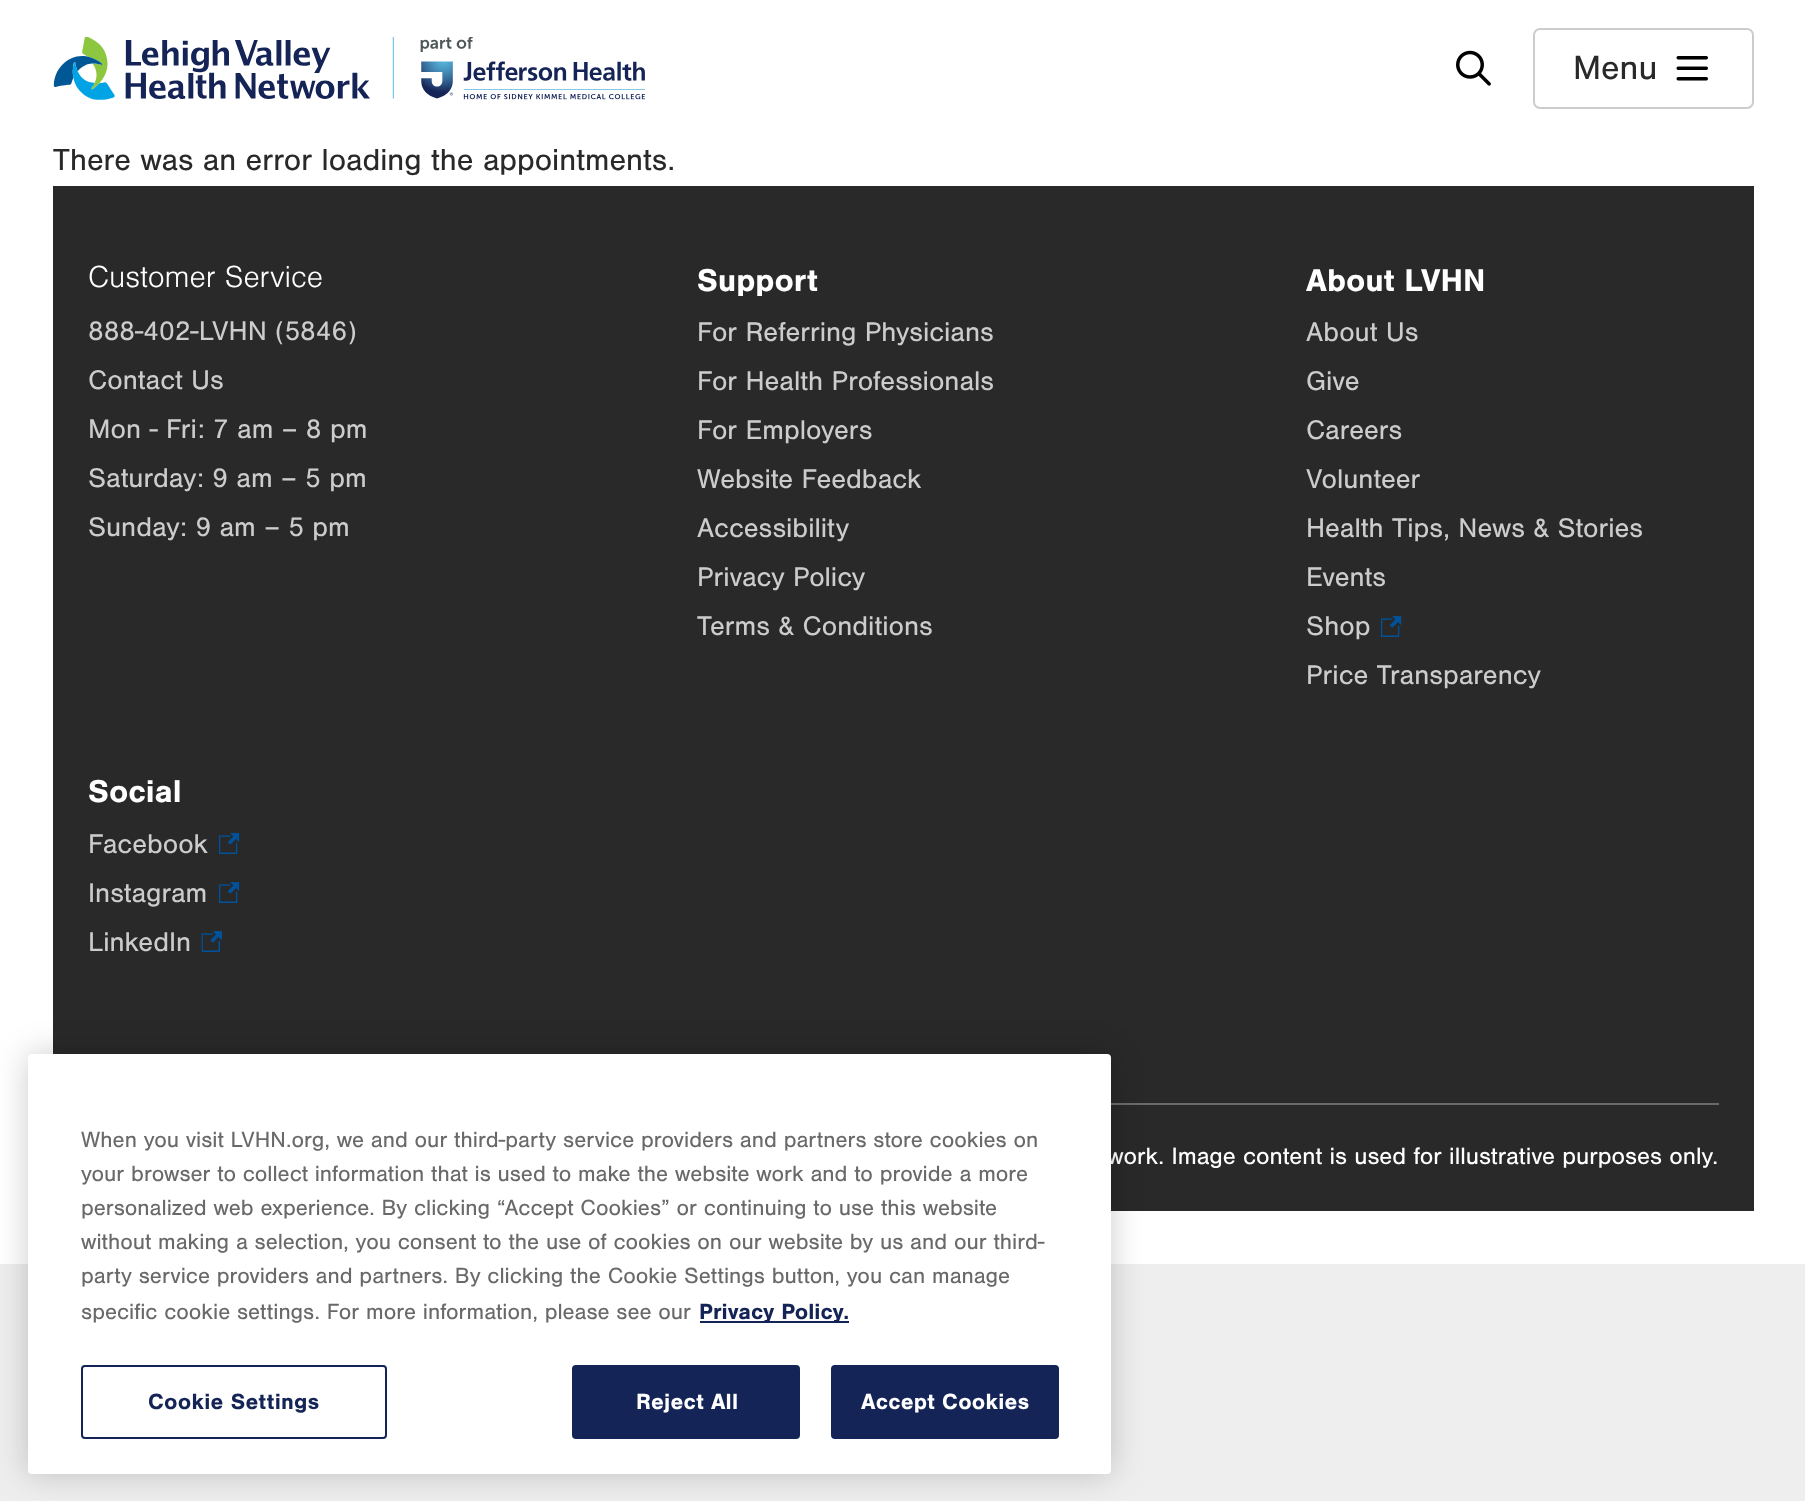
async function draw(canvas) {
	canvas.width = 1805;
	canvas.height = 1501;
	const c = canvas.getContext('2d');
	c.miterLimit = 4;
	c.fontKerning = 'normal';
	async function loadImage(src) {
		const img = new Image();
		img.src = src;
		await img.decode();
		return img;
	}

	c.fillStyle = '#eee';
	c.fillRect(0, 0, 1805, 1501);
	c.fillStyle = '#fff';
	c.fillRect(0, 0, 1805, 1264);
	c.drawImage(await loadImage('img1.png'), 53, 37, 592, 63);
	c.drawImage(await loadImage('img2.png'), 1456, 50, 35, 36);
	c.beginPath();
	c.roundRect(1534, 29, 219, 79, 6);
	c.strokeStyle = '#ccc';
	c.lineWidth = 2;
	c.stroke();
	c.font = '35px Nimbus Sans';
	c.fillStyle = '#292929';
	c.fillText('Menu', 1573, 79);
	c.drawImage(await loadImage('img3.png'), 1676, 56, 32, 25);
	c.font = '31.5px Nimbus Sans';
	c.fillText('There was an error loading the appointments.', 53, 170);
	c.fillRect(53, 186, 1701, 1025);
	c.font = '300 31.5px Nimbus Sans';
	c.fillStyle = '#fff';
	c.fillText('Customer Service', 88, 287);
	c.font = '28px Nimbus Sans';
	c.fillStyle = '#ccc';
	for (const [text, x, y] of [
		['888-402-LVHN (5846)', 88, 340],
		['Contact Us', 88, 389],
		['Mon - Fri: 7 am – 8 pm', 88, 438],
		['Saturday: 9 am – 5 pm', 88, 487],
		['Sunday: 9 am – 5 pm', 88, 536],
	]) {
		c.fillText(text, x, y);
	}
	c.font = 'bold 32.75px Nimbus Sans';
	c.fillStyle = '#fff';
	c.fillText('Support', 697, 291);
	c.font = '28px Nimbus Sans';
	c.fillStyle = '#ccc';
	for (const [text, x, y] of [
		['For Referring Physicians', 697, 341],
		['For Health Professionals', 697, 390],
		['For Employers', 697, 439],
		['Website Feedback', 697, 488],
		['Accessibility', 697, 537],
		['Privacy Policy', 697, 586],
		['Terms & Conditions', 697, 635],
	]) {
		c.fillText(text, x, y);
	}
	c.font = 'bold 32.75px Nimbus Sans';
	c.fillStyle = '#fff';
	c.fillText('About LVHN', 1306, 291);
	c.font = '28px Nimbus Sans';
	c.fillStyle = '#ccc';
	for (const [text, x, y] of [
		['About Us', 1306, 341],
		['Give', 1306, 390],
		['Careers', 1306, 439],
		['Volunteer', 1306, 488],
		['Health Tips, News & Stories', 1306, 537],
		['Events', 1306, 586],
	]) {
		c.fillText(text, x, y);
	}
	c.drawImage(await loadImage('img4.png'), 1381, 616, 21, 21);
	c.fillText('Shop', 1306, 635);
	c.fillText('Price Transparency', 1306, 684);
	c.font = 'bold 32.75px Nimbus Sans';
	c.fillStyle = '#fff';
	c.fillText('Social', 88, 802);
	c.drawImage(await loadImage('img4.png'), 219, 833, 21, 21);
	c.font = '28px Nimbus Sans';
	c.fillStyle = '#ccc';
	c.fillText('Facebook', 88, 853);
	c.drawImage(await loadImage('img4.png'), 219, 882, 21, 21);
	c.fillText('Instagram', 88, 902);
	c.drawImage(await loadImage('img5.png'), 201, 931, 21, 21);
	c.fillText('LinkedIn', 88, 951);
	c.fillStyle = '#6a6a6a';
	c.fillRect(1111, 1103, 608, 2);
	c.font = '24.5px Nimbus Sans';
	c.fillStyle = '#fff';
	c.fillText('work. Image content is used for illustrative purposes only.', 1107, 1164);
	c.fillStyle = '#00000033';
	c.filter = 'blur(16px)';
	c.beginPath();
	c.roundRect(28, 1054, 1083, 420, 4);
	c.fill();
	c.filter = 'none';
	c.fillStyle = '#fff';
	c.beginPath();
	c.roundRect(28, 1054, 1083, 420, 4);
	c.fill();
	c.font = '22.75px Nimbus Sans';
	c.fillStyle = '#696969';
	for (const [text, x, y] of [
		['When you visit LVHN.org, we and our third-party service providers and partners store cookies on', 81, 1147],
		['your browser to collect information that is used to make the website work and to provide a more', 81, 1181],
		['personalized web experience. By clicking “Accept Cookies” or continuing to use this website', 81, 1215],
		['without making a selection, you consent to the use of cookies on our website by us and our third-', 81, 1249],
		['party service providers and partners. By clicking the Cookie Settings button, you can manage', 81, 1283],
		['specific cookie settings. For more information, please see our', 81, 1319],
	]) {
		c.fillText(text, x, y);
	}
	c.fillStyle = '#152456';
	c.fillRect(700, 1321, 149, 2);
	c.font = 'bold 22.75px Nimbus Sans';
	c.fillText('Privacy Policy.', 699, 1319);
	c.beginPath();
	c.roundRect(82, 1366, 304, 72, 3);
	c.strokeStyle = '#152456';
	c.stroke();
	c.letterSpacing = '0.25px';
	c.fillText('Cookie Settings', 148, 1409);
	c.beginPath();
	c.roundRect(573, 1366, 226, 72, 3);
	c.fill();
	c.stroke();
	c.fillStyle = '#fff';
	c.fillText('Reject All', 636, 1409);
	c.fillStyle = '#152456';
	c.beginPath();
	c.roundRect(832, 1366, 226, 72, 3);
	c.fill();
	c.stroke();
	c.fillStyle = '#fff';
	c.fillText('Accept Cookies', 861, 1409);
}

draw(document.querySelector('canvas'));
